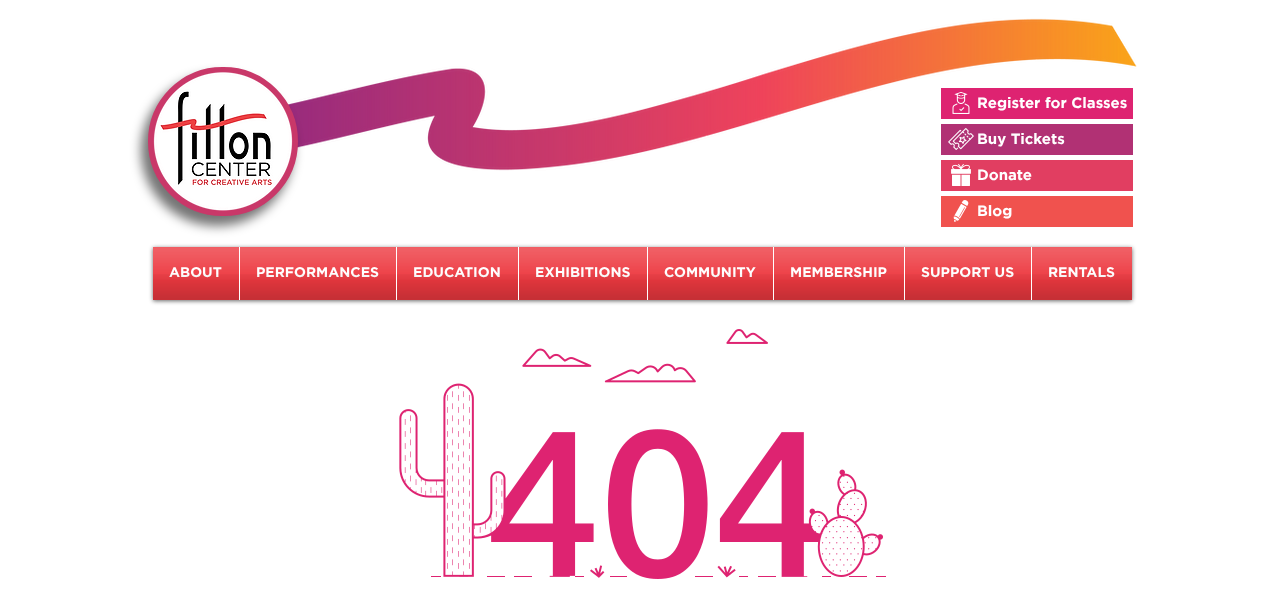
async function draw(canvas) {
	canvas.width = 1285;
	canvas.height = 600;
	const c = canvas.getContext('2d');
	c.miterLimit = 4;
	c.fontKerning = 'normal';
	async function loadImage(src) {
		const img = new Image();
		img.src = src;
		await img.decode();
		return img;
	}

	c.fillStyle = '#fff';
	c.fillRect(0, 0, 1285, 600);
	c.drawImage(await loadImage('img1.png'), 150, 18, 987, 153);
	c.fillStyle = '#0000008a';
	c.filter = 'blur(5.5px)';
	c.beginPath();
	c.roundRect(141, 75, 152, 151, 75.5);
	c.fill();
	c.filter = 'none';
	c.fillStyle = '#c93869';
	c.beginPath();
	c.roundRect(150, 69, 146, 145, 72.5);
	c.fill();
	c.strokeStyle = '#c93869';
	c.lineWidth = 4;
	c.stroke();
	c.drawImage(await loadImage('img2.png'), 153, 72, 140, 139);
	c.fillStyle = '#de2371';
	c.fillRect(941, 88, 192, 31);
	c.drawImage(await loadImage('img3.png'), 952, 92, 18, 22);
	c.font = 'bold 15px Gotham';
	c.fillStyle = '#fff';
	c.fillText('Register for Classes', 977, 108);
	c.fillStyle = '#b13174';
	c.fillRect(941, 124, 192, 31);
	c.drawImage(await loadImage('img4.png'), 948, 128, 26, 22);
	c.fillStyle = '#fff';
	c.fillText('Buy Tickets', 977, 144);
	c.fillStyle = '#e13e61';
	c.fillRect(941, 160, 192, 31);
	c.drawImage(await loadImage('img5.png'), 951, 164, 20, 22);
	c.fillStyle = '#fff';
	c.fillText('Donate', 977, 180);
	c.fillStyle = '#f0524e';
	c.fillRect(941, 196, 192, 31);
	c.drawImage(await loadImage('img6.png'), 953, 200, 16, 22);
	c.fillStyle = '#fff';
	c.fillText('Blog', 977, 216);
	c.fillStyle = '#00000099';
	c.filter = 'blur(2px)';
	c.beginPath();
	c.rect(153, 248, 979, 53);
	c.fill();
	c.filter = 'none';
	c.fillStyle = '#ed3940';
	c.fillRect(153, 247, 86, 53);
	c.font = 'bold 14px Gotham';
	c.fillStyle = '#fff';
	c.fillText('ABOUT', 169, 277);
	c.drawImage(await loadImage('img7.png'), 153, 247, 86, 33);
	c.drawImage(await loadImage('img8.png'), 153, 274, 86, 26);
	c.fillStyle = '#ed3940';
	c.fillRect(240, 247, 156, 53);
	c.fillStyle = '#fff';
	c.fillRect(239, 247, 1, 53);
	c.fillText('PERFORMANCES', 256, 277);
	c.drawImage(await loadImage('img9.png'), 240, 247, 156, 33);
	c.drawImage(await loadImage('img10.png'), 240, 274, 156, 26);
	c.fillStyle = '#ed3940';
	c.fillRect(397, 247, 121, 53);
	c.fillStyle = '#fff';
	c.fillRect(396, 247, 1, 53);
	c.fillText('EDUCATION', 413, 277);
	c.drawImage(await loadImage('img11.png'), 397, 247, 121, 33);
	c.drawImage(await loadImage('img12.png'), 397, 274, 121, 26);
	c.fillStyle = '#ed3940';
	c.fillRect(519, 247, 128, 53);
	c.fillStyle = '#fff';
	c.fillRect(518, 247, 1, 53);
	c.fillText('EXHIBITIONS', 535, 277);
	c.drawImage(await loadImage('img13.png'), 519, 247, 128, 33);
	c.drawImage(await loadImage('img14.png'), 519, 274, 128, 26);
	c.fillStyle = '#ed3940';
	c.fillRect(648, 247, 125, 53);
	c.fillStyle = '#fff';
	c.fillRect(647, 247, 1, 53);
	c.fillText('COMMUNITY', 664, 277);
	c.drawImage(await loadImage('img15.png'), 648, 247, 125, 33);
	c.drawImage(await loadImage('img16.png'), 648, 274, 125, 26);
	c.fillStyle = '#ed3940';
	c.fillRect(774, 247, 130, 53);
	c.fillStyle = '#fff';
	c.fillRect(773, 247, 1, 53);
	c.fillText('MEMBERSHIP', 790, 277);
	c.drawImage(await loadImage('img17.png'), 774, 247, 130, 33);
	c.drawImage(await loadImage('img18.png'), 774, 274, 130, 26);
	c.fillStyle = '#ed3940';
	c.fillRect(905, 247, 126, 53);
	c.fillStyle = '#fff';
	c.fillRect(904, 247, 1, 53);
	c.fillText('SUPPORT US', 921, 277);
	c.drawImage(await loadImage('img19.png'), 905, 247, 126, 33);
	c.drawImage(await loadImage('img20.png'), 905, 274, 126, 26);
	c.fillStyle = '#ed3940';
	c.fillRect(1032, 247, 100, 53);
	c.fillStyle = '#fff';
	c.fillRect(1031, 247, 1, 53);
	c.fillText('RENTALS', 1048, 277);
	c.drawImage(await loadImage('img21.png'), 1032, 247, 100, 33);
	c.drawImage(await loadImage('img22.png'), 1032, 274, 100, 26);
	c.drawImage(await loadImage('img23.png'), 399, 329, 487, 250);
}

draw(document.querySelector('canvas'));
